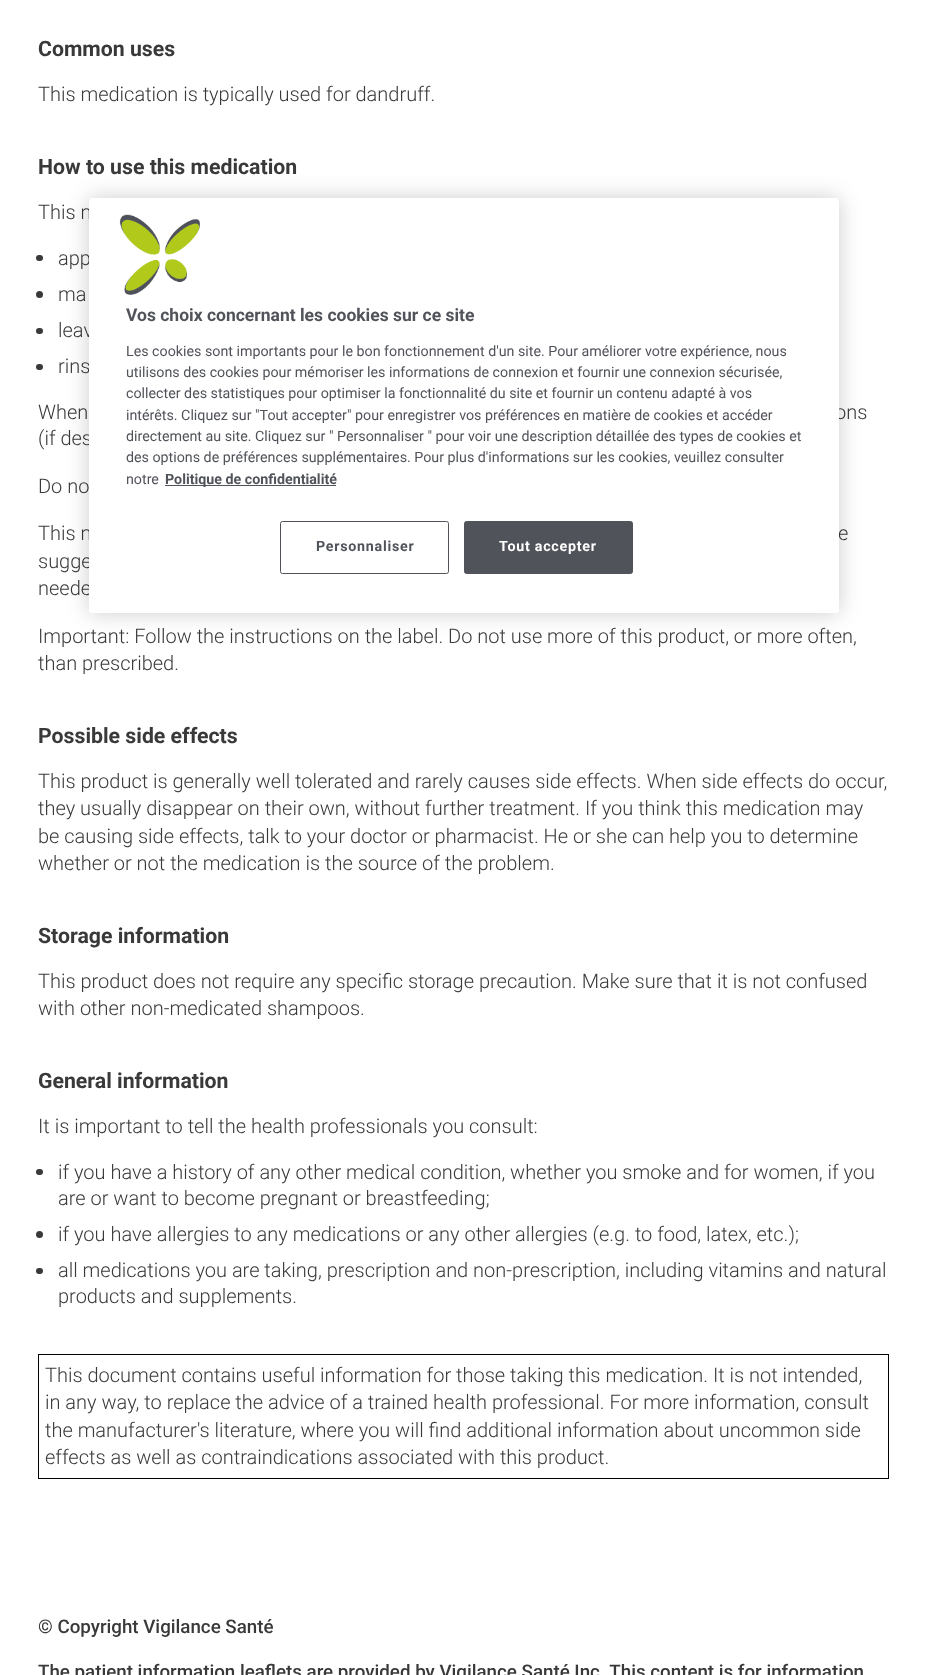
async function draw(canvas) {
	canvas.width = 926;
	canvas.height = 1675;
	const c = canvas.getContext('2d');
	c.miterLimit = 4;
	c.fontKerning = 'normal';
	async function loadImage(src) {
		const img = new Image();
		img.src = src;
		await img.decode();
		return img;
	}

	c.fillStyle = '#fff';
	c.fillRect(0, 0, 926, 1675);
	c.font = 'bold 21.25px Roboto';
	c.fillStyle = '#393939';
	c.fillText('Common uses', 38, 56);
	c.font = '300 20px Roboto';
	c.fillText('This medication is typically used for dandruff.', 38, 101);
	c.font = 'bold 21.25px Roboto';
	c.fillText('How to use this medication', 38, 174);
	c.font = '300 20px Roboto';
	c.fillText('This m', 38, 219);
	c.beginPath();
	c.roundRect(36, 255, 7, 6, 3);
	c.fill();
	c.fillText('app', 58, 265);
	c.beginPath();
	c.arc(39.5, 294.5, 3.5, 0, 2 * Math.PI);
	c.fill();
	c.fillText('ma', 58, 301);
	c.beginPath();
	c.roundRect(36, 328, 7, 6, 3);
	c.fill();
	c.fillText('leav', 58, 337);
	c.beginPath();
	c.roundRect(36, 364, 7, 6, 3);
	c.fill();
	for (const [text, x, y] of [
		['rins', 58, 373],
		['When', 38, 419],
		['ons', 835, 419],
		['(if des', 38, 445],
		['Do no', 38, 493],
		['This m', 38, 540],
		['e', 838, 540],
		['sugge', 38, 568],
		['neede', 38, 595],
		['Important: Follow the instructions on the label. Do not use more of this product, or more often,', 38, 643],
		['than prescribed.', 38, 670],
	]) {
		c.fillText(text, x, y);
	}
	c.font = 'bold 21.25px Roboto';
	c.fillText('Possible side effects', 38, 743);
	c.font = '300 20px Roboto';
	for (const [text, x, y] of [
		['This product is generally well tolerated and rarely causes side effects. When side effects do occur,', 38, 788],
		['they usually disappear on their own, without further treatment. If you think this medication may', 38, 815],
		['be causing side effects, talk to your doctor or pharmacist. He or she can help you to determine', 38, 843],
		['whether or not the medication is the source of the problem.', 38, 870],
	]) {
		c.fillText(text, x, y);
	}
	c.font = 'bold 21.25px Roboto';
	c.fillText('Storage information', 38, 943);
	c.font = '300 20px Roboto';
	c.fillText('This product does not require any specific storage precaution. Make sure that it is not confused', 38, 988);
	c.fillText('with other non-medicated shampoos.', 38, 1015);
	c.font = 'bold 21.25px Roboto';
	c.fillText('General information', 38, 1088);
	c.font = '300 20px Roboto';
	c.fillText('It is important to tell the health professionals you consult:', 38, 1133);
	c.beginPath();
	c.roundRect(36, 1169, 7, 6, 3);
	c.fill();
	c.fillText('if you have a history of any other medical condition, whether you smoke and for women, if you', 58, 1179);
	c.fillText('are or want to become pregnant or breastfeeding;', 58, 1205);
	c.beginPath();
	c.arc(39.5, 1234.5, 3.5, 0, 2 * Math.PI);
	c.fill();
	c.fillText('if you have allergies to any medications or any other allergies (e.g. to food, latex, etc.);', 58, 1241);
	c.beginPath();
	c.roundRect(36, 1268, 7, 6, 3);
	c.fill();
	c.fillText('all medications you are taking, prescription and non-prescription, including vitamins and natural', 58, 1277);
	c.fillText('products and supplements.', 58, 1303);
	c.strokeStyle = '#000';
	c.strokeRect(38.5, 1354.5, 850, 124);
	for (const [text, x, y] of [
		['This document contains useful information for those taking this medication. It is not intended,', 45, 1382],
		['in any way, to replace the advice of a trained health professional. For more information, consult', 45, 1409],
		['the manufacturer\'s literature, where you will find additional information about uncommon side', 45, 1437],
		['effects as well as contraindications associated with this product.', 45, 1464],
	]) {
		c.fillText(text, x, y);
	}
	c.font = '500 18.75px Roboto';
	c.fillText('© Copyright Vigilance Santé', 38, 1633);
	c.fillText('The patient information leaflets are provided by Vigilance Santé Inc. This content is for information', 38, 1678);
	c.fillStyle = '#00000033';
	c.filter = 'blur(11px)';
	c.beginPath();
	c.roundRect(89, 198, 750, 415, 3);
	c.fill();
	c.filter = 'none';
	c.fillStyle = '#fff';
	c.beginPath();
	c.roundRect(89, 198, 750, 415, 3);
	c.fill();
	c.drawImage(await loadImage('img1.png'), 119, 214, 81, 81);
	c.font = 'bold 17.5px Roboto';
	c.fillStyle = '#50535a';
	c.fillText('Vos choix concernant les cookies sur ce site', 126, 321);
	c.font = '14.25px Roboto';
	for (const [text, x, y] of [
		['Les cookies sont importants pour le bon fonctionnement d\'un site. Pour améliorer votre expérience, nous', 126, 356],
		['utilisons des cookies pour mémoriser les informations de connexion et fournir une connexion sécurisée,', 126, 377],
		['collecter des statistiques pour optimiser la fonctionnalité du site et fournir un contenu adapté à vos', 126, 398],
		['intérêts. Cliquez sur "Tout accepter" pour enregistrer vos préférences en matière de cookies et accéder', 126, 420],
		['directement au site. Cliquez sur " Personnaliser " pour voir une description détaillée des types de cookies et', 126, 441],
		['des options de préférences supplémentaires. Pour plus d\'informations sur les cookies, veuillez consulter', 126, 462],
		['notre', 126, 484],
	]) {
		c.fillText(text, x, y);
	}
	c.fillRect(165, 485, 171, 1);
	c.font = 'bold 14.25px Roboto';
	c.fillText('Politique de confidentialité', 165, 484);
	c.beginPath();
	c.roundRect(280.5, 521.5, 168, 52, 2);
	c.strokeStyle = '#50535a';
	c.stroke();
	c.letterSpacing = '0.75px';
	c.fillText('Personnaliser', 316, 551);
	c.beginPath();
	c.roundRect(464.5, 521.5, 168, 52, 2);
	c.fill();
	c.stroke();
	c.fillStyle = '#fff';
	c.fillText('Tout accepter', 499, 551);
}

draw(document.querySelector('canvas'));
